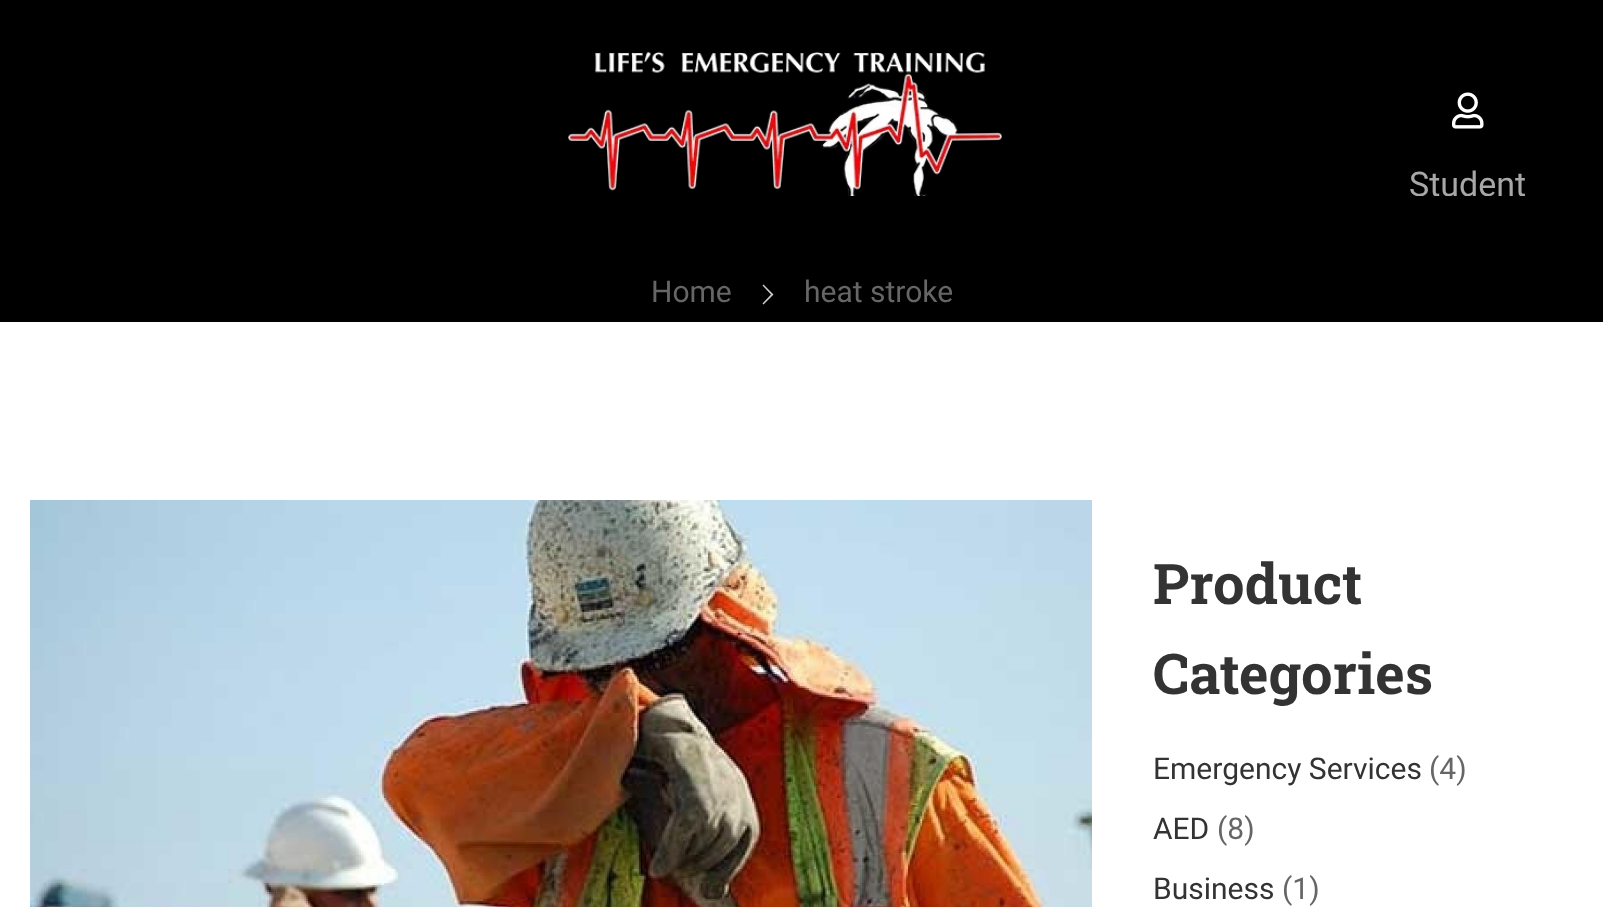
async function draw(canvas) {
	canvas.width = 1603;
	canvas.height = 907;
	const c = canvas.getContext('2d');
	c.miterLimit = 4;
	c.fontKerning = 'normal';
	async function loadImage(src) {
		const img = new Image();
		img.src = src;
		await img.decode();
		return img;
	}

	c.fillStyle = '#fff';
	c.fillRect(0, 0, 1603, 907);
	c.fillStyle = '#000';
	c.fillRect(0, 0, 1603, 196);
	c.drawImage(await loadImage('img1.png'), 568, 51, 434, 145);
	c.drawImage(await loadImage('img2.png'), 1452, 92, 32, 37);
	c.font = '34px Roboto';
	c.fillStyle = '#a7a7a7';
	c.fillText('Student', 1409, 196);
	c.fillStyle = '#000';
	c.fillRect(0, 196, 1603, 126);
	c.font = '30px Roboto';
	c.fillStyle = '#666';
	c.fillText('Home', 651, 302);
	c.fillStyle = '#cdcdcd';
	c.beginPath();
	c.moveTo(763.5, 284.5);
	c.lineTo(762.5, 285.5);
	c.lineTo(771, 294.5);
	c.lineTo(762.5, 303.5);
	c.lineTo(763.5, 304.5);
	c.lineTo(773.5, 294.5);
	c.closePath();
	c.fill();
	c.fillStyle = '#666';
	c.fillText('heat stroke', 804, 302);
	c.drawImage(await loadImage('img3.png'), 30, 500, 1062, 407);
	c.font = 'bold 56px Roboto Slab';
	c.fillStyle = '#333';
	c.fillText('Product', 1153, 604);
	c.fillText('Categories', 1153, 694);
	c.font = '30px Roboto';
	c.fillText('Emergency Services', 1153, 779);
	c.fillStyle = '#666';
	c.fillText('(4)', 1429, 779);
	c.fillStyle = '#333';
	c.fillText('AED', 1153, 839);
	c.fillStyle = '#666';
	c.fillText('(8)', 1217, 839);
	c.fillStyle = '#333';
	c.fillText('Business', 1153, 899);
	c.fillStyle = '#666';
	c.fillText('(1)', 1282, 899);
}

draw(document.querySelector('canvas'));
